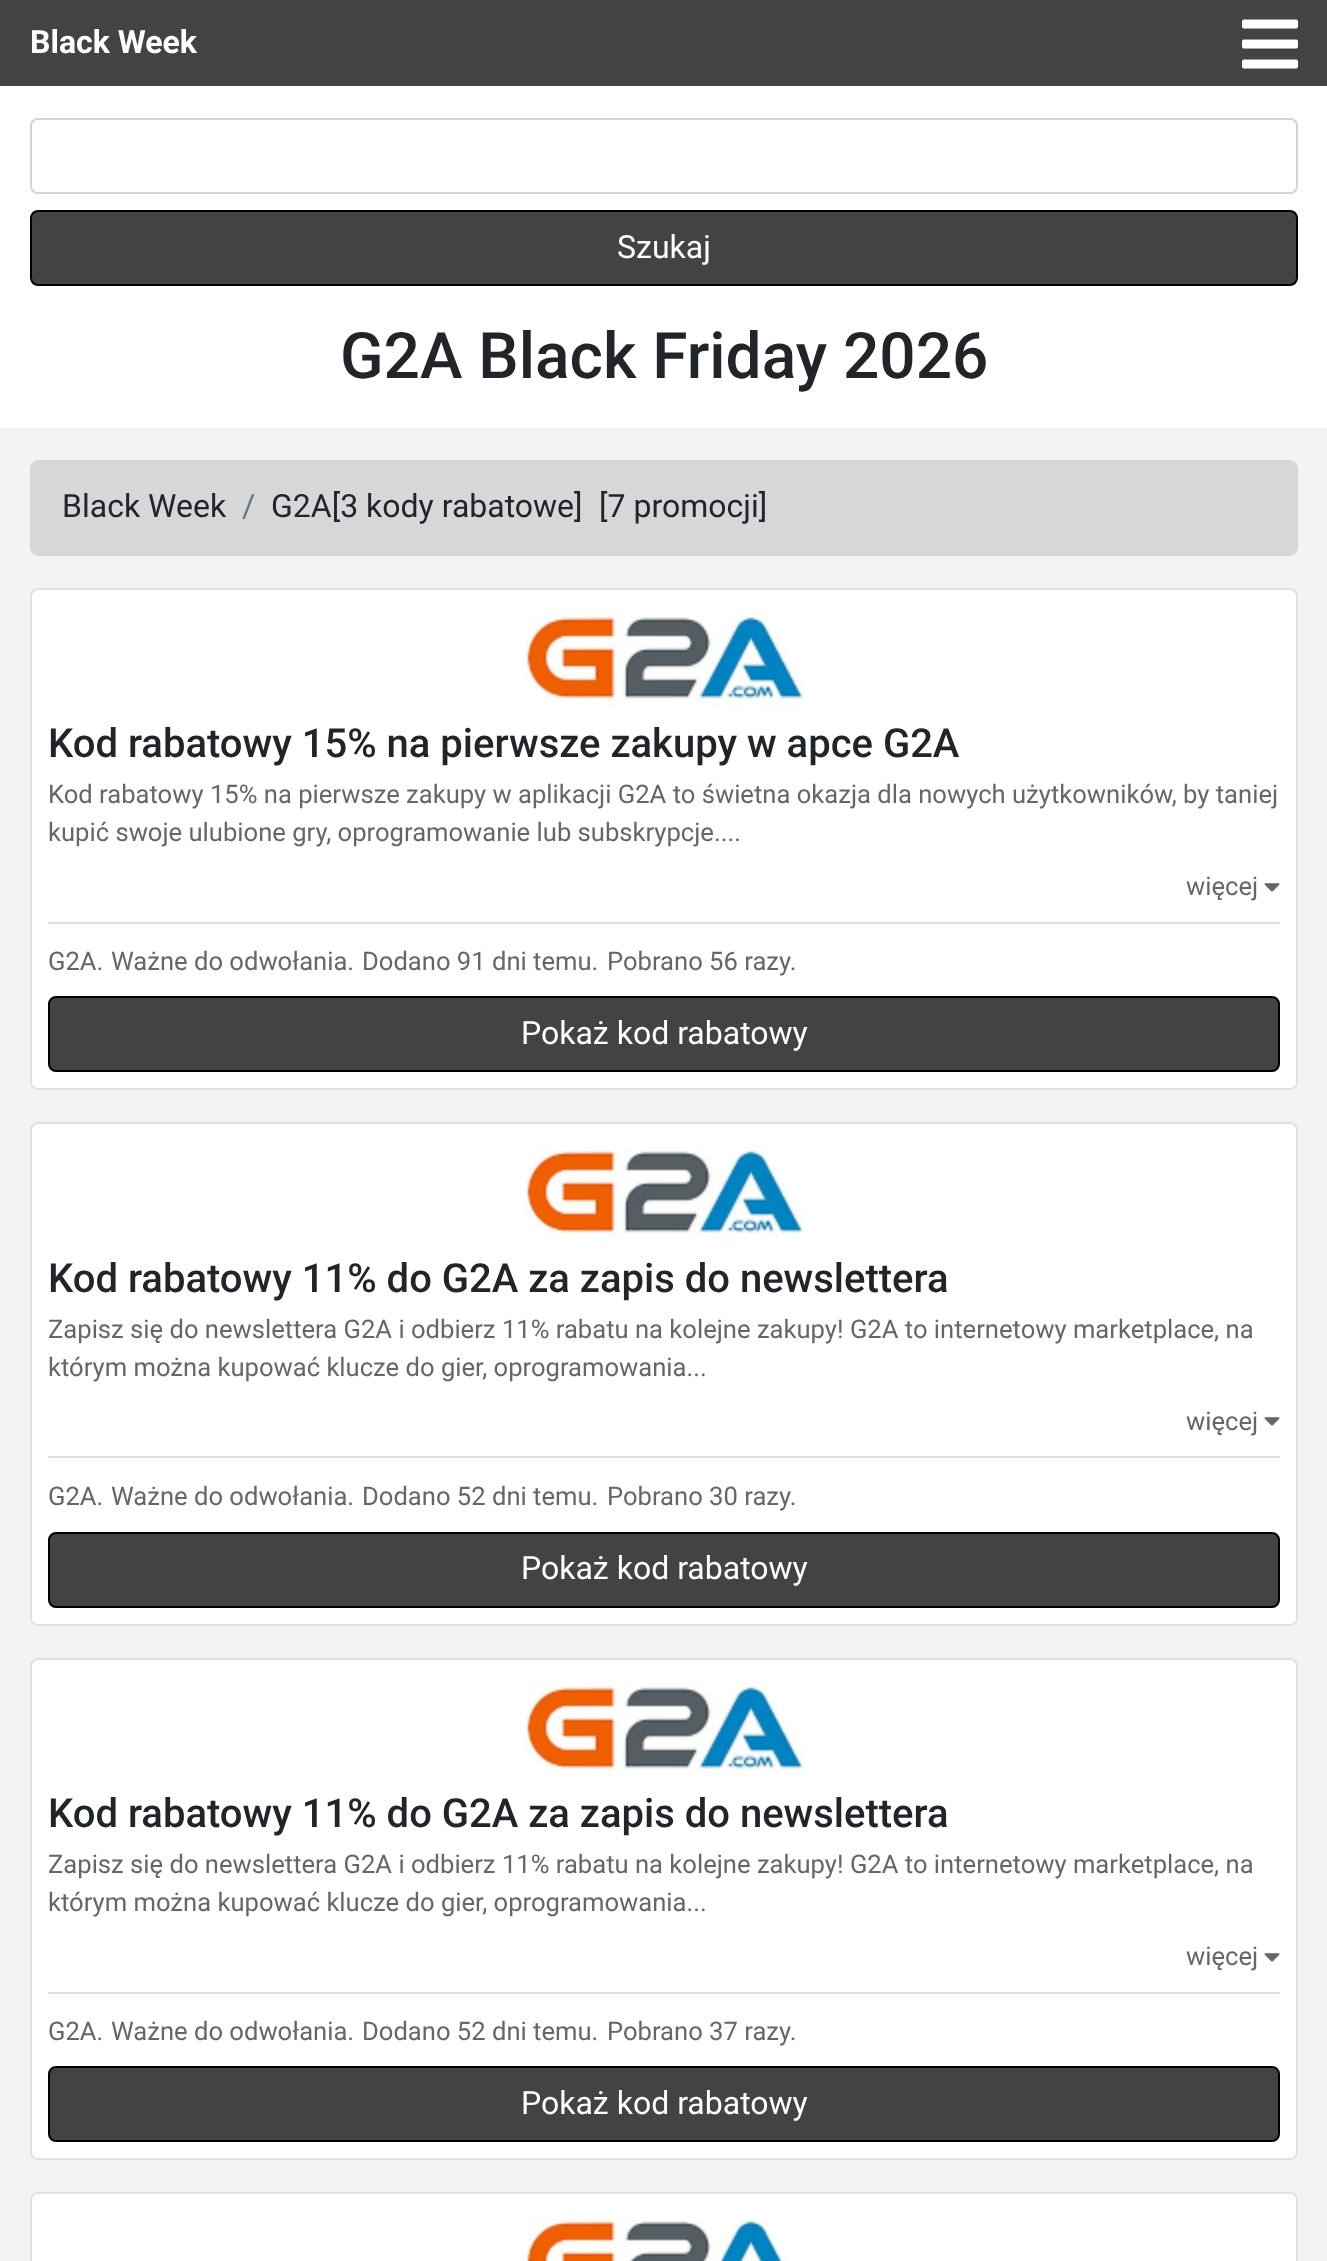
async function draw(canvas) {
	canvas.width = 1327;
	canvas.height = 2261;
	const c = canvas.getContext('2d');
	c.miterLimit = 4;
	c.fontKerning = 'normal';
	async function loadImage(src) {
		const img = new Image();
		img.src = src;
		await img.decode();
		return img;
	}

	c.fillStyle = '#fff';
	c.fillRect(0, 0, 1327, 2261);
	c.fillStyle = '#444343';
	c.fillRect(0, 0, 1327, 86);
	c.font = 'bold 32px Roboto';
	c.fillStyle = '#fff';
	c.fillText('Black Week', 30, 53);
	c.drawImage(await loadImage('img1.png'), 1242, 19, 56, 50);
	c.beginPath();
	c.roundRect(31, 119, 1266, 74, 7);
	c.strokeStyle = '#ced4da';
	c.lineWidth = 2;
	c.stroke();
	c.fillStyle = '#444343';
	c.beginPath();
	c.roundRect(31, 211, 1266, 74, 7);
	c.fill();
	c.strokeStyle = '#000';
	c.stroke();
	c.font = '32px Roboto';
	c.fillStyle = '#fff';
	c.fillText('Szukaj', 617, 258);
	c.font = '500 64px Roboto';
	c.fillStyle = '#212529';
	c.fillText('G2A Black Friday 2026', 340, 378);
	c.fillStyle = '#f1f3f5';
	c.fillRect(0, 428, 1327, 1833);
	c.fillStyle = '#d5d7d8';
	c.beginPath();
	c.roundRect(30, 460, 1268, 96, 8);
	c.fill();
	c.font = '32px Roboto';
	c.fillStyle = '#212529';
	c.fillText('Black Week', 62, 517);
	c.fillStyle = '#6c757d';
	c.fillText('/', 242, 517);
	c.fillStyle = '#212529';
	c.fillText('G2A[3 kody rabatowe]', 271, 517);
	c.fillText('[7 promocji]', 599, 517);
	c.fillStyle = '#fff';
	c.beginPath();
	c.roundRect(30, 588, 1268, 502, 8);
	c.fill();
	c.beginPath();
	c.roundRect(31, 589, 1266, 500, 7);
	c.strokeStyle = '#0000001f';
	c.stroke();
	c.drawImage(await loadImage('img2.png'), 525, 614, 279, 95);
	c.font = '500 40px Roboto';
	c.fillStyle = '#212529';
	c.fillText('Kod rabatowy 15% na pierwsze zakupy w apce G2A', 48, 757);
	c.font = '25.6px Roboto';
	c.fillStyle = '#666';
	for (const [text, x, y] of [
		['Kod rabatowy 15% na pierwsze zakupy w aplikacji G2A to świetna okazja dla nowych użytkowników, by taniej', 48, 803],
		['kupić swoje ulubione gry, oprogramowanie lub subskrypcje....', 48, 841],
		['więcej', 1186, 895],
	]) {
		c.fillText(text, x, y);
	}
	c.drawImage(await loadImage('img3.png'), 1264, 883, 16, 9);
	c.fillStyle = '#dee2e6';
	c.fillRect(48, 922, 1232, 2);
	c.fillStyle = '#666';
	for (const [text, x, y] of [
		['G2A.', 48, 970],
		['Ważne do odwołania.', 111, 970],
		['Dodano 91 dni temu.', 362, 970],
		['Pobrano 56 razy.', 607, 970],
	]) {
		c.fillText(text, x, y);
	}
	c.fillStyle = '#444343';
	c.beginPath();
	c.roundRect(49, 997, 1230, 74, 7);
	c.fill();
	c.strokeStyle = '#000';
	c.stroke();
	c.font = '32px Roboto';
	c.fillStyle = '#fff';
	c.fillText('Pokaż kod rabatowy', 521, 1044);
	c.beginPath();
	c.roundRect(30, 1122, 1268, 504, 8);
	c.fill();
	c.beginPath();
	c.roundRect(31, 1123, 1266, 502, 7);
	c.strokeStyle = '#0000001f';
	c.stroke();
	c.drawImage(await loadImage('img2.png'), 525, 1148, 279, 95);
	c.font = '500 40px Roboto';
	c.fillStyle = '#212529';
	c.fillText('Kod rabatowy 11% do G2A za zapis do newslettera', 48, 1292);
	c.font = '25.6px Roboto';
	c.fillStyle = '#666';
	for (const [text, x, y] of [
		['Zapisz się do newslettera G2A i odbierz 11% rabatu na kolejne zakupy! G2A to internetowy marketplace, na', 48, 1338],
		['którym można kupować klucze do gier, oprogramowania...', 48, 1376],
		['więcej', 1186, 1430],
	]) {
		c.fillText(text, x, y);
	}
	c.drawImage(await loadImage('img3.png'), 1264, 1417, 16, 9);
	c.fillStyle = '#dee2e6';
	c.fillRect(48, 1456, 1232, 2);
	c.fillStyle = '#666';
	for (const [text, x, y] of [
		['G2A.', 48, 1505],
		['Ważne do odwołania.', 111, 1505],
		['Dodano 52 dni temu.', 362, 1505],
		['Pobrano 30 razy.', 607, 1505],
	]) {
		c.fillText(text, x, y);
	}
	c.fillStyle = '#444343';
	c.beginPath();
	c.roundRect(49, 1533, 1230, 74, 7);
	c.fill();
	c.strokeStyle = '#000';
	c.stroke();
	c.font = '32px Roboto';
	c.fillStyle = '#fff';
	c.fillText('Pokaż kod rabatowy', 521, 1579);
	c.beginPath();
	c.roundRect(30, 1658, 1268, 502, 8);
	c.fill();
	c.beginPath();
	c.roundRect(31, 1659, 1266, 500, 7);
	c.strokeStyle = '#0000001f';
	c.stroke();
	c.drawImage(await loadImage('img2.png'), 525, 1684, 279, 95);
	c.font = '500 40px Roboto';
	c.fillStyle = '#212529';
	c.fillText('Kod rabatowy 11% do G2A za zapis do newslettera', 48, 1827);
	c.font = '25.6px Roboto';
	c.fillStyle = '#666';
	for (const [text, x, y] of [
		['Zapisz się do newslettera G2A i odbierz 11% rabatu na kolejne zakupy! G2A to internetowy marketplace, na', 48, 1873],
		['którym można kupować klucze do gier, oprogramowania...', 48, 1911],
		['więcej', 1186, 1965],
	]) {
		c.fillText(text, x, y);
	}
	c.drawImage(await loadImage('img3.png'), 1264, 1953, 16, 9);
	c.fillStyle = '#dee2e6';
	c.fillRect(48, 1992, 1232, 2);
	c.fillStyle = '#666';
	for (const [text, x, y] of [
		['G2A.', 48, 2040],
		['Ważne do odwołania.', 111, 2040],
		['Dodano 52 dni temu.', 362, 2040],
		['Pobrano 37 razy.', 607, 2040],
	]) {
		c.fillText(text, x, y);
	}
	c.fillStyle = '#444343';
	c.beginPath();
	c.roundRect(49, 2067, 1230, 74, 7);
	c.fill();
	c.strokeStyle = '#000';
	c.stroke();
	c.font = '32px Roboto';
	c.fillStyle = '#fff';
	c.fillText('Pokaż kod rabatowy', 521, 2114);
	c.beginPath();
	c.roundRect(30, 2192, 1268, 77, 8);
	c.fill();
	c.beginPath();
	c.roundRect(31, 2193, 1266, 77, 7);
	c.strokeStyle = '#0000001f';
	c.stroke();
	c.drawImage(await loadImage('img4.png'), 526, 2218, 262, 43);
}

draw(document.querySelector('canvas'));
